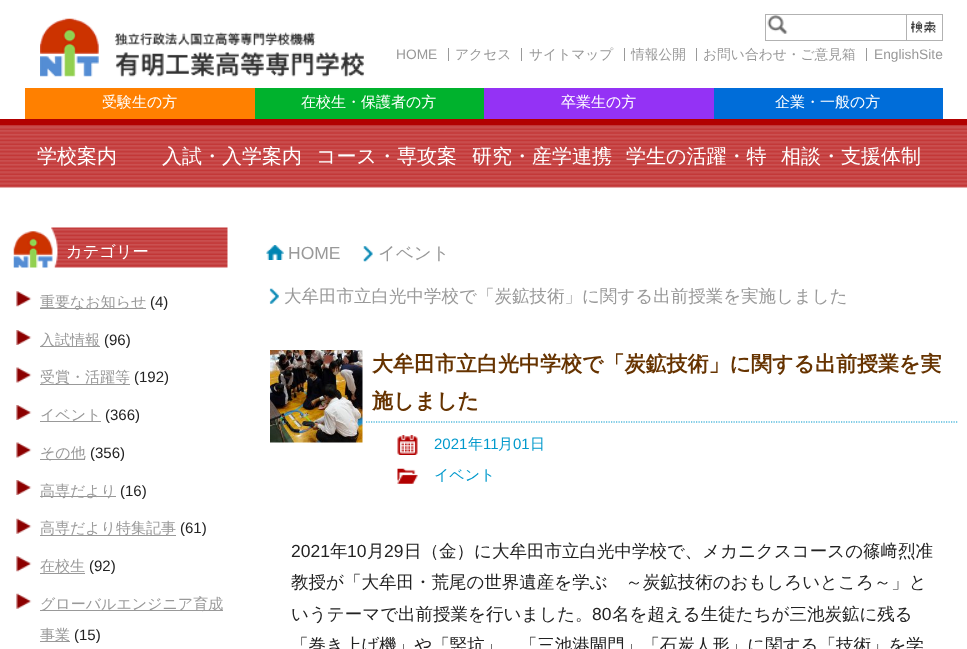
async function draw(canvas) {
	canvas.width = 967;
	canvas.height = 649;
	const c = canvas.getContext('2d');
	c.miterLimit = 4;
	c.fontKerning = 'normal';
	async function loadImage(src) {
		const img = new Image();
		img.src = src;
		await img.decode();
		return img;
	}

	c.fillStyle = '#fff';
	c.fillRect(0, 0, 967, 649);
	c.fillStyle = '#b20000';
	c.fillRect(0, 119, 967, 6);
	c.drawImage(await loadImage('img1.png'), 40, 18, 325, 59);
	c.strokeStyle = '#b2b2b2';
	c.strokeRect(765.5, 14.5, 177, 26);
	c.drawImage(await loadImage('img2.png'), 767, 15, 21, 19);
	c.fillStyle = '#b2b2b2';
	c.fillRect(906, 15, 1, 25);
	c.drawImage(await loadImage('img3.png'), 911, 21, 25, 12);
	c.font = '13.75px Liberation Sans';
	c.fillStyle = '#999';
	c.fillText('HOME', 396, 59);
	c.fillRect(448, 48, 1, 13);
	c.font = '500 13.75px WenQuanYi Zen Hei';
	c.fillText('アクセス', 455, 59);
	c.fillRect(521, 48, 1, 13);
	c.fillText('サイトマップ', 529, 59);
	c.fillRect(624, 48, 1, 13);
	c.fillText('情報公開', 631, 59);
	c.fillRect(696, 48, 1, 13);
	c.fillText('お問い合わせ・ご意見箱', 703, 59);
	c.fillRect(866, 48, 1, 13);
	c.font = '13.75px Liberation Sans';
	c.fillText('EnglishSite', 874, 59);
	c.fillStyle = '#ff8000';
	c.fillRect(25, 88, 230, 31);
	c.font = '500 15px WenQuanYi Zen Hei';
	c.fillStyle = '#fff';
	c.fillText('受験生の方', 102, 107);
	c.fillStyle = '#00b22d';
	c.fillRect(255, 88, 229, 31);
	c.fillStyle = '#fff';
	c.fillText('在校生・保護者の方', 301, 107);
	c.fillStyle = '#9432f5';
	c.fillRect(484, 88, 230, 31);
	c.fillStyle = '#fff';
	c.fillText('卒業生の方', 561, 107);
	c.fillStyle = '#006dd9';
	c.fillRect(714, 88, 229, 31);
	c.fillStyle = '#fff';
	c.fillText('企業・一般の方', 775, 107);
	c.drawImage(await loadImage('img4.png'), 0, 125, 967, 63);
	c.font = '500 20px WenQuanYi Zen Hei';
	for (const [text, x, y] of [
		['学校案内', 37, 163],
		['入試・入学案内', 162, 163],
		['コース・専攻案', 316, 163],
		['研究・産学連携', 472, 163],
		['学生の活躍・特', 626, 163],
		['相談・支援体制', 781, 163],
	]) {
		c.fillText(text, x, y);
	}
	c.drawImage(await loadImage('img5.png'), 13, 227, 215, 41);
	c.font = '500 16.25px WenQuanYi Zen Hei';
	c.fillText('カテゴリー', 66, 257);
	c.drawImage(await loadImage('img6.png'), 16, 291, 16, 16);
	c.fillStyle = '#999';
	c.fillRect(40, 308, 106, 1);
	c.font = '500 15px WenQuanYi Zen Hei';
	c.fillText('重要なお知らせ', 40, 307);
	c.font = '15px Liberation Sans';
	c.fillStyle = '#222';
	c.fillText('(4)', 150, 307);
	c.drawImage(await loadImage('img7.png'), 16, 330, 16, 15);
	c.fillStyle = '#999';
	c.fillRect(40, 346, 60, 1);
	c.font = '500 15px WenQuanYi Zen Hei';
	c.fillText('入試情報', 40, 345);
	c.font = '15px Liberation Sans';
	c.fillStyle = '#222';
	c.fillText('(96)', 104, 345);
	c.drawImage(await loadImage('img8.png'), 16, 367, 16, 16);
	c.fillStyle = '#999';
	c.fillRect(40, 384, 90, 1);
	c.font = '500 15px WenQuanYi Zen Hei';
	c.fillText('受賞・活躍等', 40, 382);
	c.font = '15px Liberation Sans';
	c.fillStyle = '#222';
	c.fillText('(192)', 134, 382);
	c.drawImage(await loadImage('img7.png'), 16, 405, 16, 15);
	c.fillStyle = '#999';
	c.fillRect(40, 421, 61, 1);
	c.font = '500 15px WenQuanYi Zen Hei';
	c.fillText('イベント', 40, 420);
	c.font = '15px Liberation Sans';
	c.fillStyle = '#222';
	c.fillText('(366)', 105, 420);
	c.drawImage(await loadImage('img8.png'), 16, 442, 16, 16);
	c.fillStyle = '#999';
	c.fillRect(40, 459, 45, 1);
	c.font = '500 15px WenQuanYi Zen Hei';
	c.fillText('その他', 40, 458);
	c.font = '15px Liberation Sans';
	c.fillStyle = '#222';
	c.fillText('(356)', 90, 458);
	c.drawImage(await loadImage('img7.png'), 16, 480, 16, 15);
	c.fillStyle = '#999';
	c.fillRect(40, 496, 76, 1);
	c.font = '500 15px WenQuanYi Zen Hei';
	c.fillText('高専だより', 40, 496);
	c.font = '15px Liberation Sans';
	c.fillStyle = '#222';
	c.fillText('(16)', 120, 496);
	c.drawImage(await loadImage('img9.png'), 16, 518, 16, 16);
	c.fillStyle = '#999';
	c.fillRect(40, 535, 136, 1);
	c.font = '500 15px WenQuanYi Zen Hei';
	c.fillText('高専だより特集記事', 40, 533);
	c.font = '15px Liberation Sans';
	c.fillStyle = '#222';
	c.fillText('(61)', 180, 533);
	c.drawImage(await loadImage('img10.png'), 16, 556, 16, 16);
	c.fillStyle = '#999';
	c.fillRect(40, 573, 45, 1);
	c.font = '500 15px WenQuanYi Zen Hei';
	c.fillText('在校生', 40, 571);
	c.font = '15px Liberation Sans';
	c.fillStyle = '#222';
	c.fillText('(92)', 89, 571);
	c.drawImage(await loadImage('img9.png'), 16, 593, 16, 16);
	c.fillStyle = '#999';
	c.fillRect(40, 610, 183, 1);
	c.font = '500 15px WenQuanYi Zen Hei';
	c.fillText('グローバルエンジニア育成', 40, 609);
	c.fillRect(40, 641, 30, 1);
	c.fillText('事業', 40, 640);
	c.font = '15px Liberation Sans';
	c.fillStyle = '#222';
	c.fillText('(15)', 74, 640);
	c.drawImage(await loadImage('img11.png'), 266, 245, 18, 15);
	c.font = '17.5px Liberation Sans';
	c.fillStyle = '#999';
	c.fillText('HOME', 288, 259);
	c.drawImage(await loadImage('img12.png'), 363, 246, 10, 16);
	c.font = '500 17.5px WenQuanYi Zen Hei';
	c.fillText('イベント', 378, 259);
	c.drawImage(await loadImage('img13.png'), 269, 288, 10, 16);
	c.fillText('大牟田市立白光中学校で「炭鉱技術」に関する出前授業を実施しました', 284, 302);
	c.beginPath();
	c.moveTo(266, 422);
	c.lineTo(957.5, 422);
	c.strokeStyle = '#09c';
	c.lineWidth = 1.2;
	c.setLineDash([1.25, 1.25]);
	c.stroke();
	c.strokeStyle = '#fff';
	c.lineWidth = 4;
	c.setLineDash([]);
	c.strokeRect(268, 348, 96, 96);
	c.drawImage(await loadImage('img14.png'), 270, 350, 93, 93);
	c.font = 'bold 21px WenQuanYi Zen Hei';
	c.fillStyle = '#630';
	c.fillText('大牟田市立白光中学校で「炭鉱技術」に関する出前授業を実', 372, 371);
	c.fillText('施しました', 372, 408);
	c.drawImage(await loadImage('img15.png'), 397, 435, 21, 20);
	c.font = '15px Liberation Sans';
	c.fillStyle = '#09c';
	c.fillText('2021', 434, 449);
	c.font = '500 15px WenQuanYi Zen Hei';
	c.fillText('年', 468, 449);
	c.font = '15px Liberation Sans';
	c.fillText('11', 483, 449);
	c.font = '500 15px WenQuanYi Zen Hei';
	c.fillText('月', 498, 449);
	c.font = '15px Liberation Sans';
	c.fillText('01', 513, 449);
	c.font = '500 15px WenQuanYi Zen Hei';
	c.fillText('日', 530, 449);
	c.drawImage(await loadImage('img16.png'), 397, 468, 21, 16);
	c.fillText('イベント', 434, 480);
	c.font = '17.5px Liberation Sans';
	c.fillStyle = '#222';
	c.fillText('2021', 291, 557);
	c.font = '500 17.5px WenQuanYi Zen Hei';
	c.fillText('年', 330, 557);
	c.font = '17.5px Liberation Sans';
	c.fillText('10', 347, 557);
	c.font = '500 17.5px WenQuanYi Zen Hei';
	c.fillText('月', 367, 557);
	c.font = '17.5px Liberation Sans';
	c.fillText('29', 384, 557);
	c.font = '500 17.5px WenQuanYi Zen Hei';
	c.fillText('日（金）に大牟田市立白光中学校で、メカニクスコースの篠', 404, 557);
	c.font = '17.5px IPAPGothic';
	c.fillText('﨑', 880, 557);
	c.font = '500 17.5px WenQuanYi Zen Hei';
	for (const [text, x, y] of [
		['烈准', 898, 557],
		['教授が「大牟田・荒尾の世界遺産を学ぶ　～炭鉱技術のおもしろいところ～」と', 291, 588],
		['いうテーマで出前授業を行いました。', 291, 620],
	]) {
		c.fillText(text, x, y);
	}
	c.font = '17.5px Liberation Sans';
	c.fillText('80', 592, 620);
	c.font = '500 17.5px WenQuanYi Zen Hei';
	c.fillText('名を超える生徒たちが三池炭鉱に残る', 612, 620);
	c.fillText('「巻き上げ機」や「竪坑」、「三池港閘門」「石炭人形」に関する「技術」を学', 291, 651);
}

draw(document.querySelector('canvas'));
